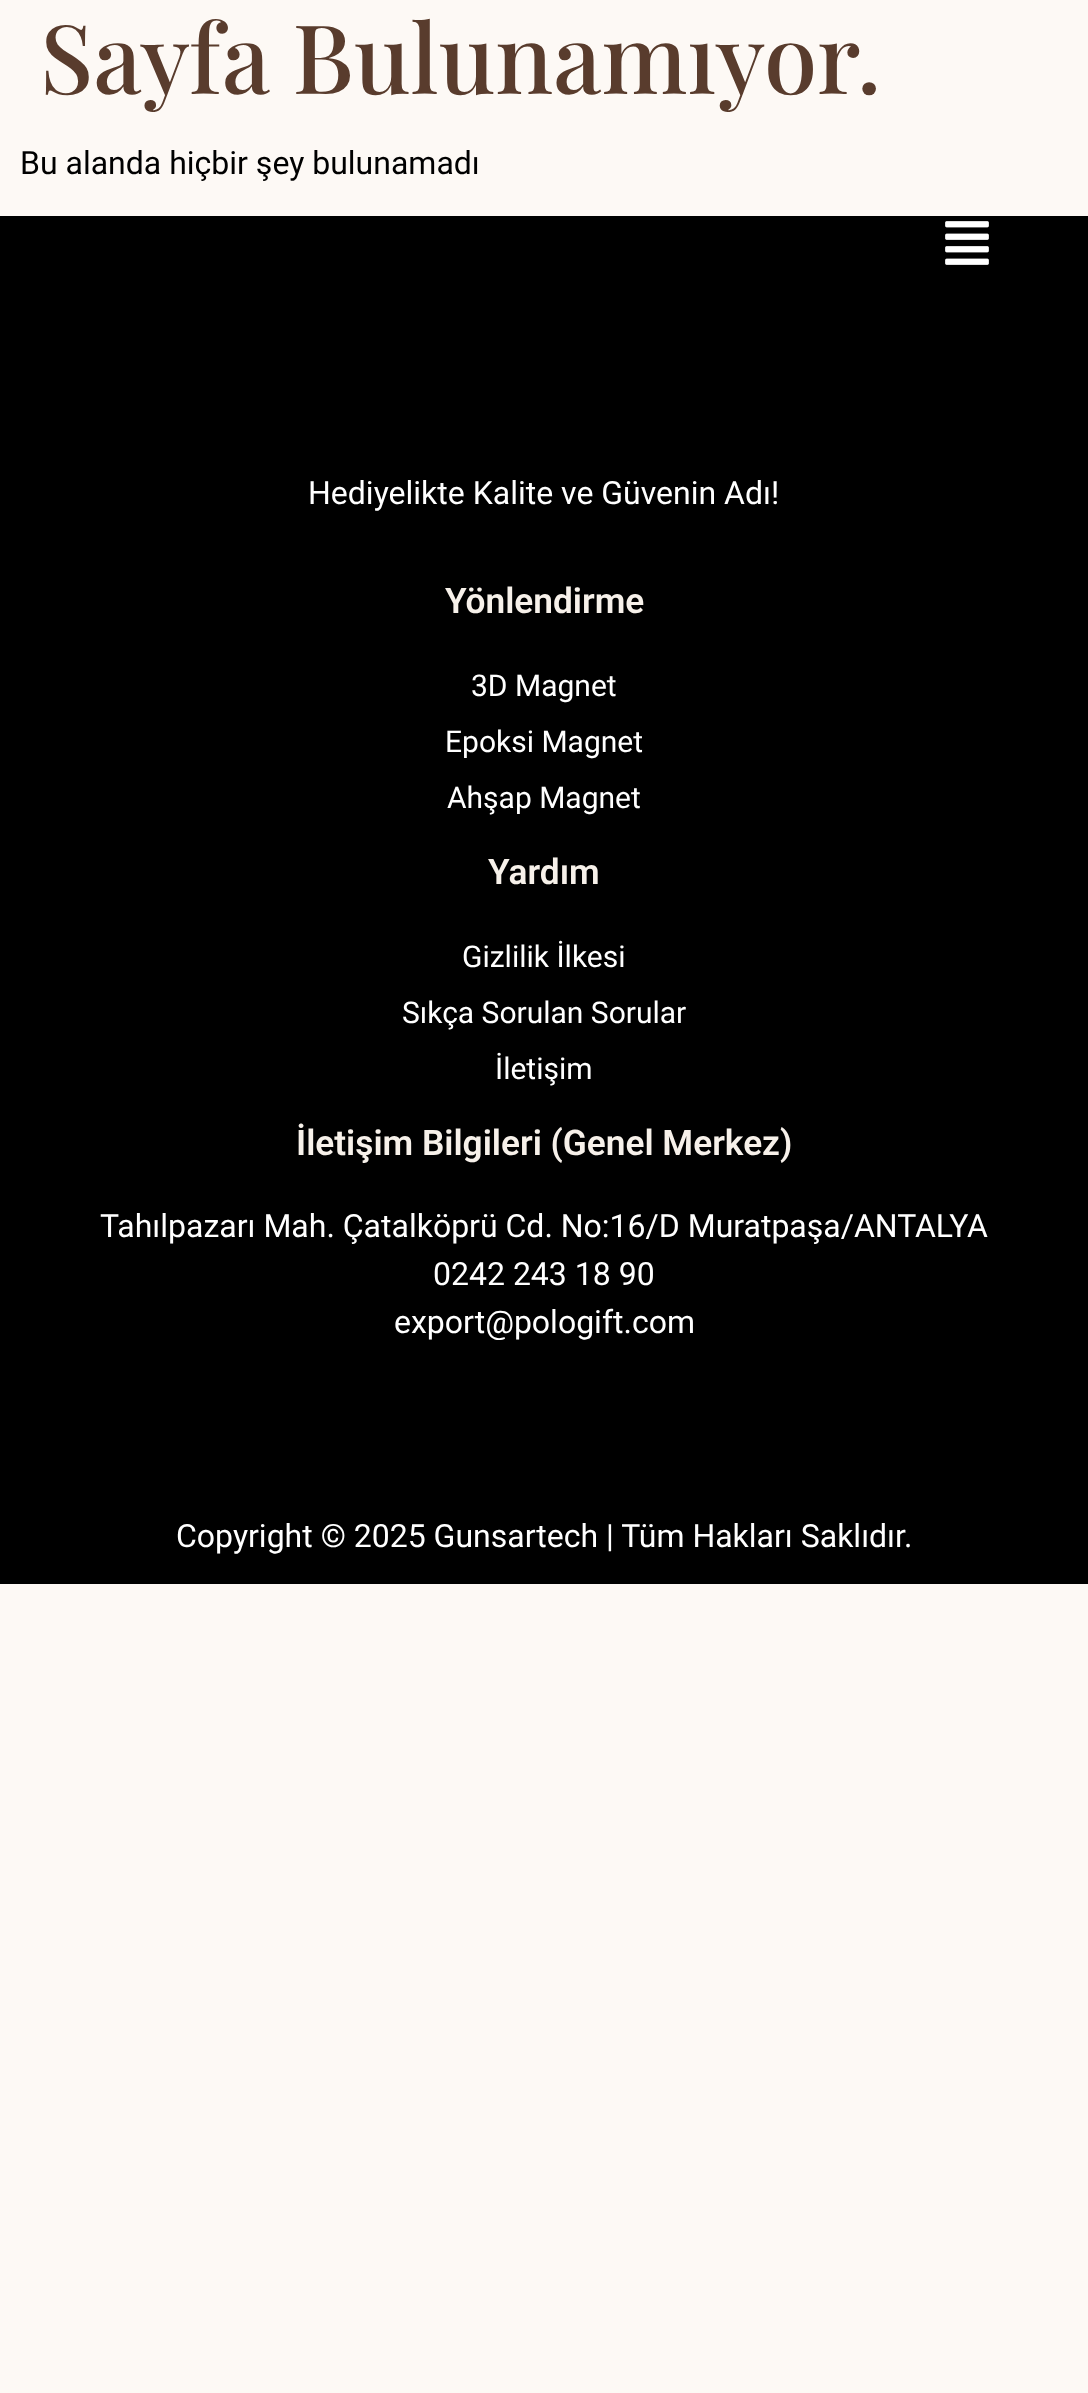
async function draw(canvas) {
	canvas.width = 1088;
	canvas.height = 2393;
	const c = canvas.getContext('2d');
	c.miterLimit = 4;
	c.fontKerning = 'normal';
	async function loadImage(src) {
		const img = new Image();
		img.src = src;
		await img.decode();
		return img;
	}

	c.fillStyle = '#fdf9f5';
	c.fillRect(0, 0, 1088, 2393);
	c.font = '500 96px Playfair Display';
	c.fillStyle = '#593c2d';
	c.fillText('Sayfa Bulunamıyor.', 40, 94);
	c.font = '32px Roboto';
	c.fillStyle = '#000';
	c.fillText('Bu alanda hiçbir şey bulunamadı', 20, 174);
	c.fillRect(0, 216, 1088, 1368);
	c.drawImage(await loadImage('img1.png'), 945, 221, 44, 44);
	c.fillStyle = '#fff';
	c.fillText('Hediyelikte Kalite ve Güvenin Adı!', 308, 504);
	c.font = '600 35.25px Roboto';
	c.fillStyle = '#f7f1ea';
	c.fillText('Yönlendirme', 445, 613);
	c.font = '30px Roboto';
	c.fillStyle = '#fff';
	for (const [text, x, y] of [
		['3D Magnet', 471, 696],
		['Epoksi Magnet', 445, 752],
		['Ahşap Magnet', 447, 808],
	]) {
		c.fillText(text, x, y);
	}
	c.font = '600 35.25px Roboto';
	c.fillStyle = '#f7f1ea';
	c.fillText('Yardım', 488, 884);
	c.font = '30px Roboto';
	c.fillStyle = '#fff';
	for (const [text, x, y] of [
		['Gizlilik İlkesi', 462, 967],
		['Sıkça Sorulan Sorular', 402, 1023],
		['İletişim', 495, 1079],
	]) {
		c.fillText(text, x, y);
	}
	c.font = '600 35.25px Roboto';
	c.fillStyle = '#f7f1ea';
	c.fillText('İletişim Bilgileri (Genel Merkez)', 296, 1155);
	c.font = '32px Roboto';
	c.fillStyle = '#fff';
	for (const [text, x, y] of [
		['Tahılpazarı Mah. Çatalköprü Cd. No:16/D Muratpaşa/ANTALYA', 100, 1237],
		['0242 243 18 90', 433, 1285],
		['export@pologift.com', 394, 1333],
		['Copyright © 2025 Gunsartech | Tüm Hakları Saklıdır.', 176, 1547],
	]) {
		c.fillText(text, x, y);
	}
}

draw(document.querySelector('canvas'));
